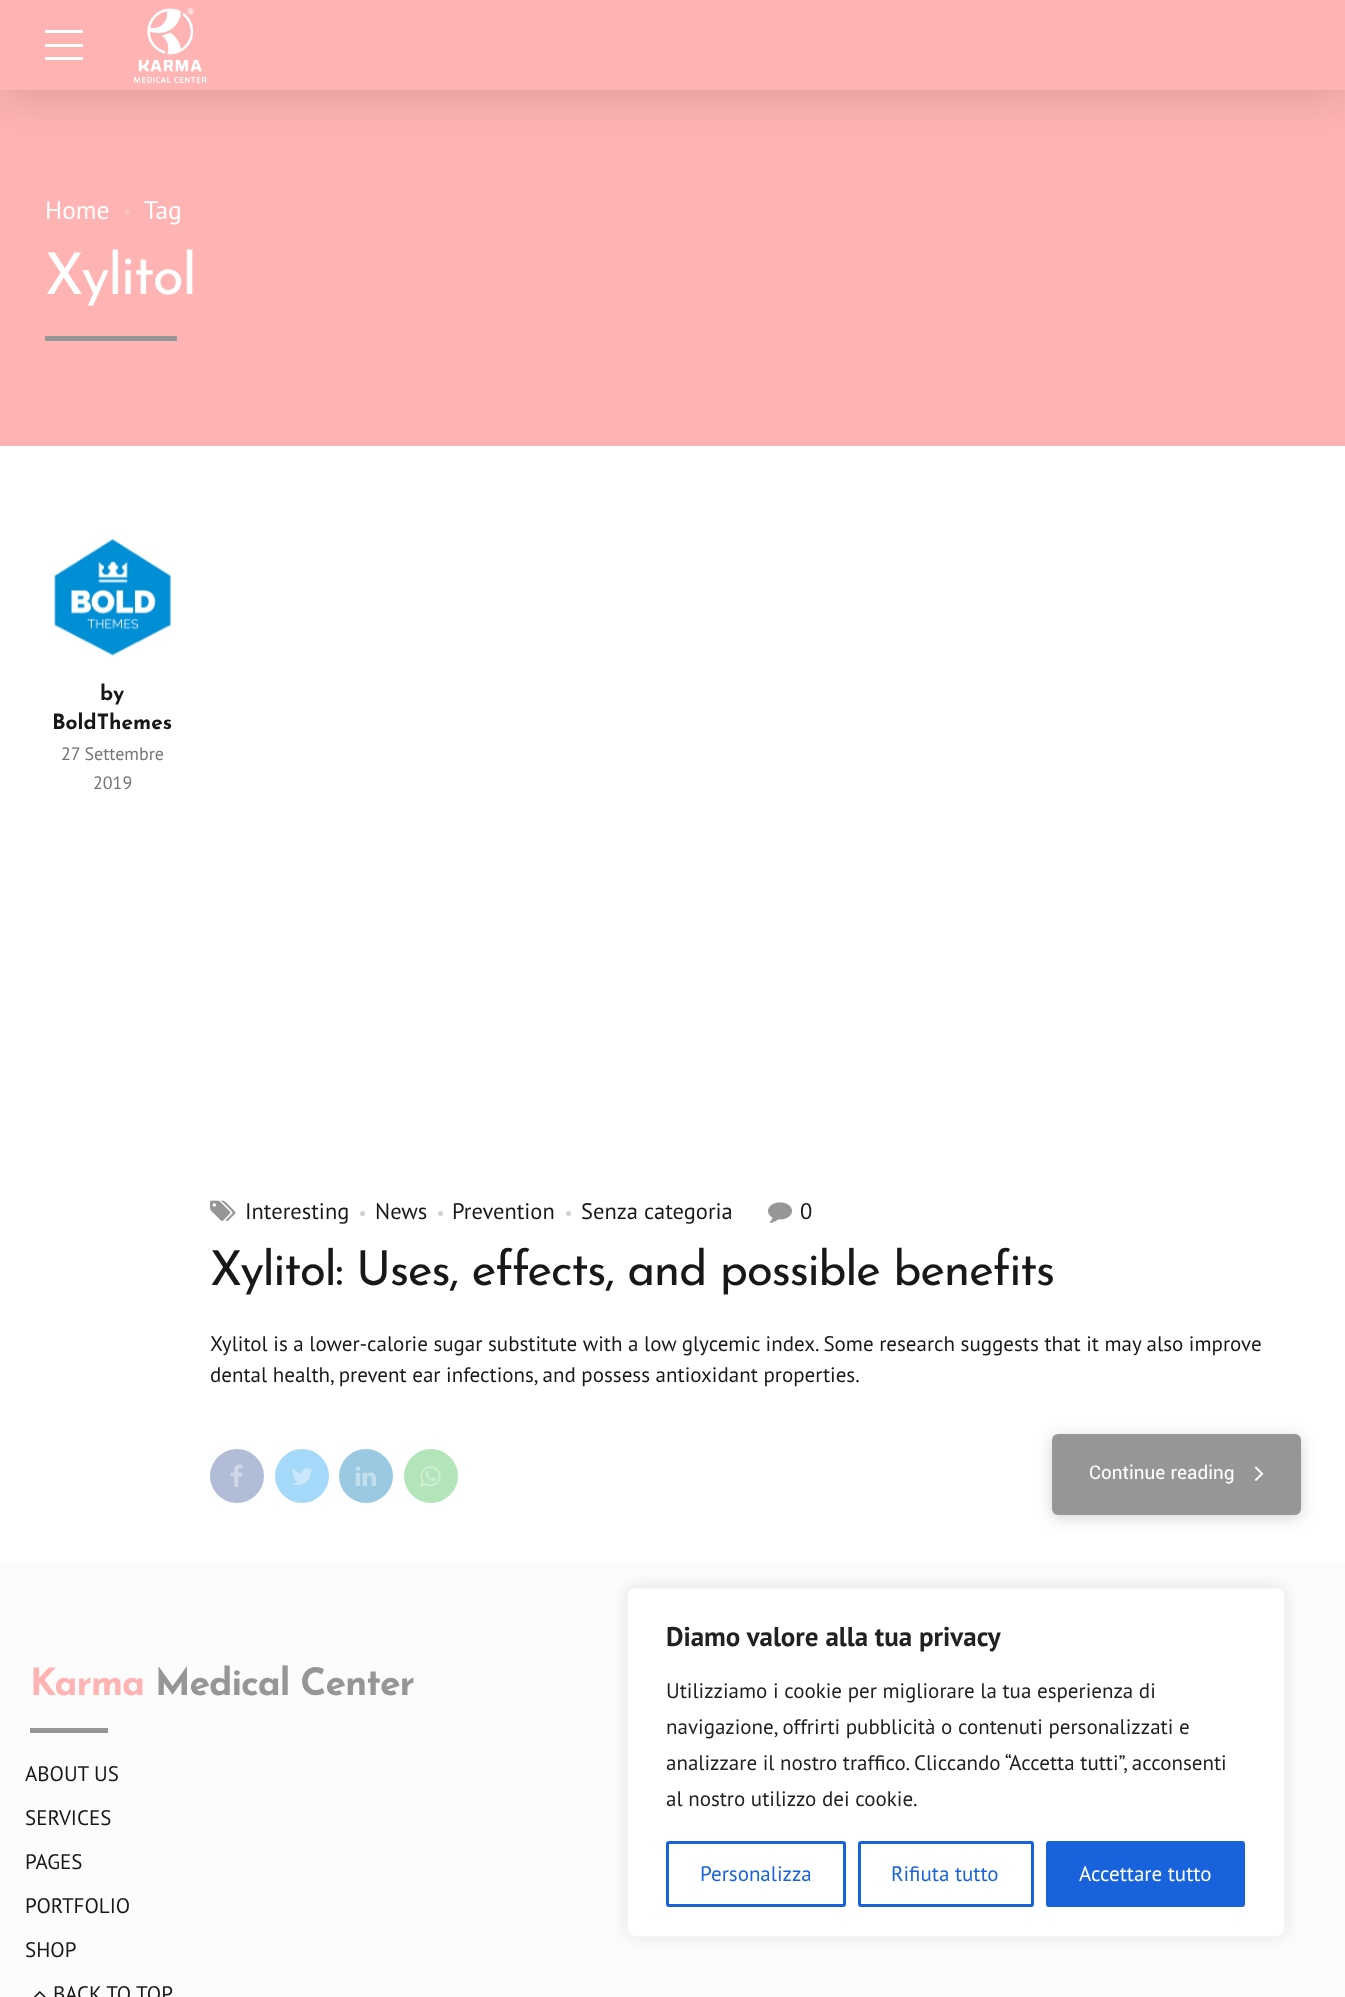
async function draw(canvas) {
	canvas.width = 1345;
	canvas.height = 1997;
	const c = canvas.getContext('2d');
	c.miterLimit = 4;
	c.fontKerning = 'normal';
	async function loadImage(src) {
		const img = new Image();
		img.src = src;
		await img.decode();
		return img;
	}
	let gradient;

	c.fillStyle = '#fff';
	c.fillRect(0, 0, 1345, 1997);
	c.fillStyle = '#ffb3b3';
	c.fillRect(0, 90, 1345, 356);
	c.fillStyle = '#00000026';
	c.filter = 'blur(22.5px)';
	c.beginPath();
	c.rect(0, 3, 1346, 90);
	c.fill();
	c.filter = 'none';
	for (const [x, y, w, h, color] of [
		[0, 0, 1345, 90, '#ffb3b3'],
		[45, 30, 38, 3, '#fff'],
		[45, 44, 38, 3, '#fff'],
		[45, 57, 38, 3, '#fff'],
	]) {
		c.fillStyle = color;
		c.fillRect(x, y, w, h);
	}
	c.drawImage(await loadImage('img1.png'), 134, 8, 73, 75);
	c.font = '25.5px PT Sans';
	c.fillText('Home', 45, 219);
	c.fillStyle = '#ffc2c2';
	c.beginPath();
	c.arc(127.5, 211.5, 2.5, 0, 2 * Math.PI);
	c.fill();
	c.fillStyle = '#fff';
	c.fillText('Tag', 144, 219);
	c.letterSpacing = '-1.75px';
	c.font = '57.5px Josefin Sans';
	c.fillText('Xylitol', 45, 294);
	c.fillStyle = '#969696';
	c.fillRect(45, 336, 132, 5);
	c.drawImage(await loadImage('img2.png'), 54, 538, 117, 118);
	c.letterSpacing = '0px';
	c.font = 'bold 21px Josefin Sans';
	c.fillStyle = '#181818';
	c.fillText('by', 100, 700);
	c.fillText('BoldThemes', 52, 729);
	c.font = '18px PT Sans';
	c.fillStyle = '#747474';
	c.fillText('27 Settembre', 61, 760);
	c.fillText('2019', 93, 789);
	c.drawImage(await loadImage('img3.png'), 210, 1200, 26, 21);
	c.font = '22.5px PT Sans';
	c.fillStyle = '#181818';
	c.fillText('Interesting', 245, 1219);
	c.fillStyle = '#d1d1d1';
	c.beginPath();
	c.arc(362.5, 1213.5, 2.5, 0, 2 * Math.PI);
	c.fill();
	c.fillStyle = '#181818';
	c.fillText('News', 375, 1219);
	c.fillStyle = '#d1d1d1';
	c.beginPath();
	c.arc(440.5, 1213.5, 2.5, 0, 2 * Math.PI);
	c.fill();
	c.fillStyle = '#181818';
	c.fillText('Prevention', 452, 1219);
	c.fillStyle = '#d1d1d1';
	c.beginPath();
	c.arc(568.5, 1213.5, 2.5, 0, 2 * Math.PI);
	c.fill();
	c.fillStyle = '#181818';
	c.fillText('Senza categoria', 581, 1219);
	c.drawImage(await loadImage('img4.png'), 768, 1202, 24, 21);
	c.fillText('0', 800, 1219);
	c.letterSpacing = '-1.45px';
	c.font = '48px Josefin Sans';
	c.fillText('Xylitol: Uses, effects, and possible benefits', 210, 1285);
	c.letterSpacing = '0px';
	c.font = '21px PT Sans';
	c.fillText('Xylitol is a lower-calorie sugar substitute with a low glycemic index. Some research suggests that it may also improve', 210, 1351);
	c.fillText('dental health, prevent ear infections, and possess antioxidant properties.', 210, 1382);
	c.fillStyle = '#b1bdd6';
	c.beginPath();
	c.arc(237, 1476, 27, 0, 2 * Math.PI);
	c.fill();
	c.drawImage(await loadImage('img5.png'), 230, 1464, 13, 23);
	c.fillStyle = '#a5d9fa';
	c.beginPath();
	c.arc(302, 1476, 27, 0, 2 * Math.PI);
	c.fill();
	c.drawImage(await loadImage('img6.png'), 292, 1467, 21, 18);
	c.fillStyle = '#99cae1';
	c.beginPath();
	c.arc(366, 1476, 27, 0, 2 * Math.PI);
	c.fill();
	c.drawImage(await loadImage('img7.png'), 355, 1466, 21, 20);
	c.fillStyle = '#b2e5b9';
	c.beginPath();
	c.arc(431, 1476, 27, 0, 2 * Math.PI);
	c.fill();
	c.drawImage(await loadImage('img8.png'), 420, 1466, 21, 21);
	c.fillStyle = '#22222233';
	c.filter = 'blur(7.5px)';
	c.beginPath();
	c.roundRect(1052, 1437, 249, 81, 6);
	c.fill();
	c.filter = 'none';
	gradient = c.createLinearGradient(1052, 1475, 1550, 1475);
	gradient.addColorStop(0.51, '#969696');
	gradient.addColorStop(1, '#ffb3b3');
	c.fillStyle = gradient;
	c.beginPath();
	c.roundRect(1052, 1434, 249, 81, 6);
	c.fill();
	c.font = '21px Yantramanav';
	c.fillStyle = '#fff';
	c.fillText('Continue reading', 1089, 1479);
	c.drawImage(await loadImage('img9.png'), 1254, 1466, 10, 15);
	c.fillStyle = '#fcfcfc';
	c.fillRect(0, 1562, 1345, 435);
	c.letterSpacing = '-1.1px';
	c.font = 'bold 37.5px Josefin Sans';
	c.fillStyle = '#ffb3b3';
	c.fillText('Karma', 30, 1695);
	c.fillStyle = '#969696';
	c.fillText('Medical Center', 155, 1695);
	c.fillRect(30, 1728, 78, 5);
	c.letterSpacing = '0px';
	c.font = '21px PT Sans';
	c.fillStyle = '#181818';
	for (const [text, x, y] of [
		['ABOUT US', 25, 1781],
		['SERVICES', 25, 1825],
		['PAGES', 25, 1869],
		['PORTFOLIO', 25, 1913],
		['SHOP', 25, 1957],
	]) {
		c.fillText(text, x, y);
	}
	c.drawImage(await loadImage('img10.png'), 34, 1991, 12, 6);
	c.fillText('BACK TO TOP', 53, 2001);
	c.fillStyle = '#acabab4d';
	c.filter = 'blur(7.5px)';
	c.beginPath();
	c.roundRect(626, 1586, 660, 351, 9);
	c.fill();
	c.filter = 'none';
	c.fillStyle = '#fff';
	c.beginPath();
	c.roundRect(627, 1588, 658, 349, 8);
	c.fill();
	c.strokeStyle = '#f4f4f4';
	c.lineWidth = 2;
	c.stroke();
	c.font = 'bold 27px PT Sans';
	c.fillStyle = '#212121';
	c.fillText('Diamo valore alla tua privacy', 666, 1646);
	c.font = '21px PT Sans';
	for (const [text, x, y] of [
		['Utilizziamo i cookie per migliorare la tua esperienza di', 666, 1698],
		['navigazione, offrirti pubblicità o contenuti personalizzati e', 666, 1734],
		['analizzare il nostro traffico. Cliccando “Accetta tutti”, acconsenti', 666, 1770],
		['al nostro utilizzo dei cookie.', 666, 1806],
	]) {
		c.fillText(text, x, y);
	}
	c.beginPath();
	c.roundRect(667.5, 1842.5, 177, 63, 1.5);
	c.strokeStyle = '#1863dc';
	c.lineWidth = 3;
	c.stroke();
	c.fillStyle = '#1863dc';
	c.fillText('Personalizza', 700, 1881);
	c.beginPath();
	c.roundRect(859.5, 1842.5, 173, 63, 1.5);
	c.stroke();
	c.fillText('Rifiuta tutto', 891, 1881);
	c.beginPath();
	c.roundRect(1047.5, 1842.5, 196, 63, 1.5);
	c.fill();
	c.stroke();
	c.fillStyle = '#fff';
	c.fillText('Accettare tutto', 1079, 1881);
}

draw(document.querySelector('canvas'));
